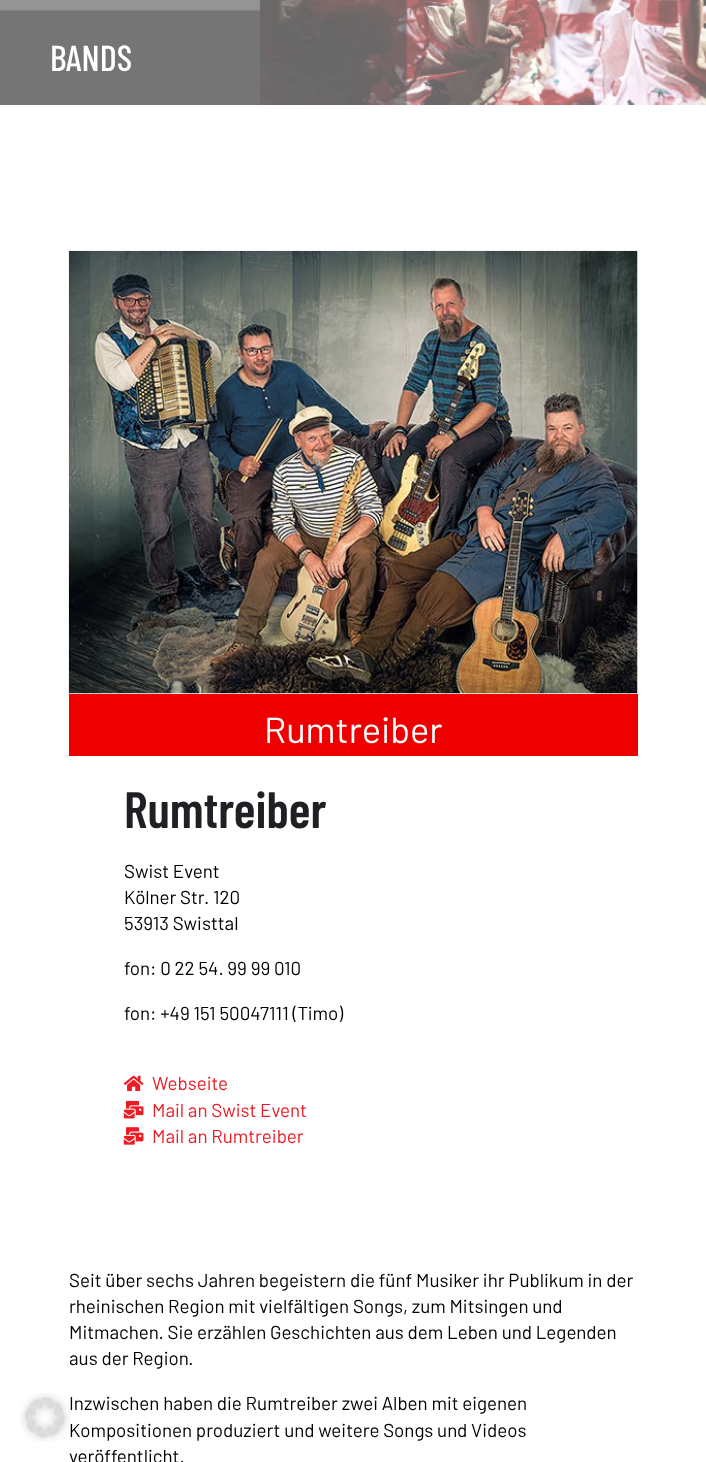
async function draw(canvas) {
	canvas.width = 706;
	canvas.height = 1462;
	const c = canvas.getContext('2d');
	c.miterLimit = 4;
	c.fontKerning = 'normal';
	async function loadImage(src) {
		const img = new Image();
		img.src = src;
		await img.decode();
		return img;
	}

	c.fillStyle = '#fff';
	c.fillRect(0, 0, 706, 1462);
	c.drawImage(await loadImage('img1.png'), 20, 1393, 50, 49);
	c.drawImage(await loadImage('img2.png'), 0, 0, 706, 105);
	c.font = '500 36.25px Barlow Condensed';
	c.fillText('BANDS', 50, 71);
	c.drawImage(await loadImage('img3.png'), 68, 250, 570, 444);
	c.fillStyle = '#e00';
	c.fillRect(69, 694, 569, 62);
	c.font = '36.25px Barlow';
	c.fillStyle = '#fff';
	c.fillText('Rumtreiber', 264, 743);
	c.font = '600 51px Barlow Condensed';
	c.fillStyle = '#211f23';
	c.fillText('Rumtreiber', 124, 828);
	c.font = '18.75px Barlow';
	c.fillStyle = '#000';
	for (const [text, x, y] of [
		['Swist Event', 124, 878],
		['Kölner Str. 120', 124, 904],
		['53913 Swisttal', 124, 930],
		['fon: 0 22 54. 99 99 010', 124, 975],
		['fon: +49 151 50047111 (Timo)', 124, 1020],
	]) {
		c.fillText(text, x, y);
	}
	c.drawImage(await loadImage('img4.png'), 123, 1075, 21, 17);
	c.fillStyle = '#ed1b24';
	c.fillText('Webseite', 152, 1090);
	c.drawImage(await loadImage('img5.png'), 123, 1100, 21, 19);
	c.fillText('Mail an Swist Event', 152, 1117);
	c.drawImage(await loadImage('img6.png'), 123, 1127, 21, 18);
	c.fillText('Mail an Rumtreiber', 152, 1143);
	c.fillStyle = '#000';
	for (const [text, x, y] of [
		['Seit über sechs Jahren begeistern die fünf Musiker ihr Publikum in der', 69, 1287],
		['rheinischen Region mit vielfältigen Songs, zum Mitsingen und', 69, 1313],
		['Mitmachen. Sie erzählen Geschichten aus dem Leben und Legenden', 69, 1339],
		['aus der Region.', 69, 1365],
		['Inzwischen haben die Rumtreiber zwei Alben mit eigenen', 69, 1410],
		['Kompositionen produziert und weitere Songs und Videos', 69, 1437],
		['veröffentlicht.', 69, 1463],
	]) {
		c.fillText(text, x, y);
	}
}

draw(document.querySelector('canvas'));
